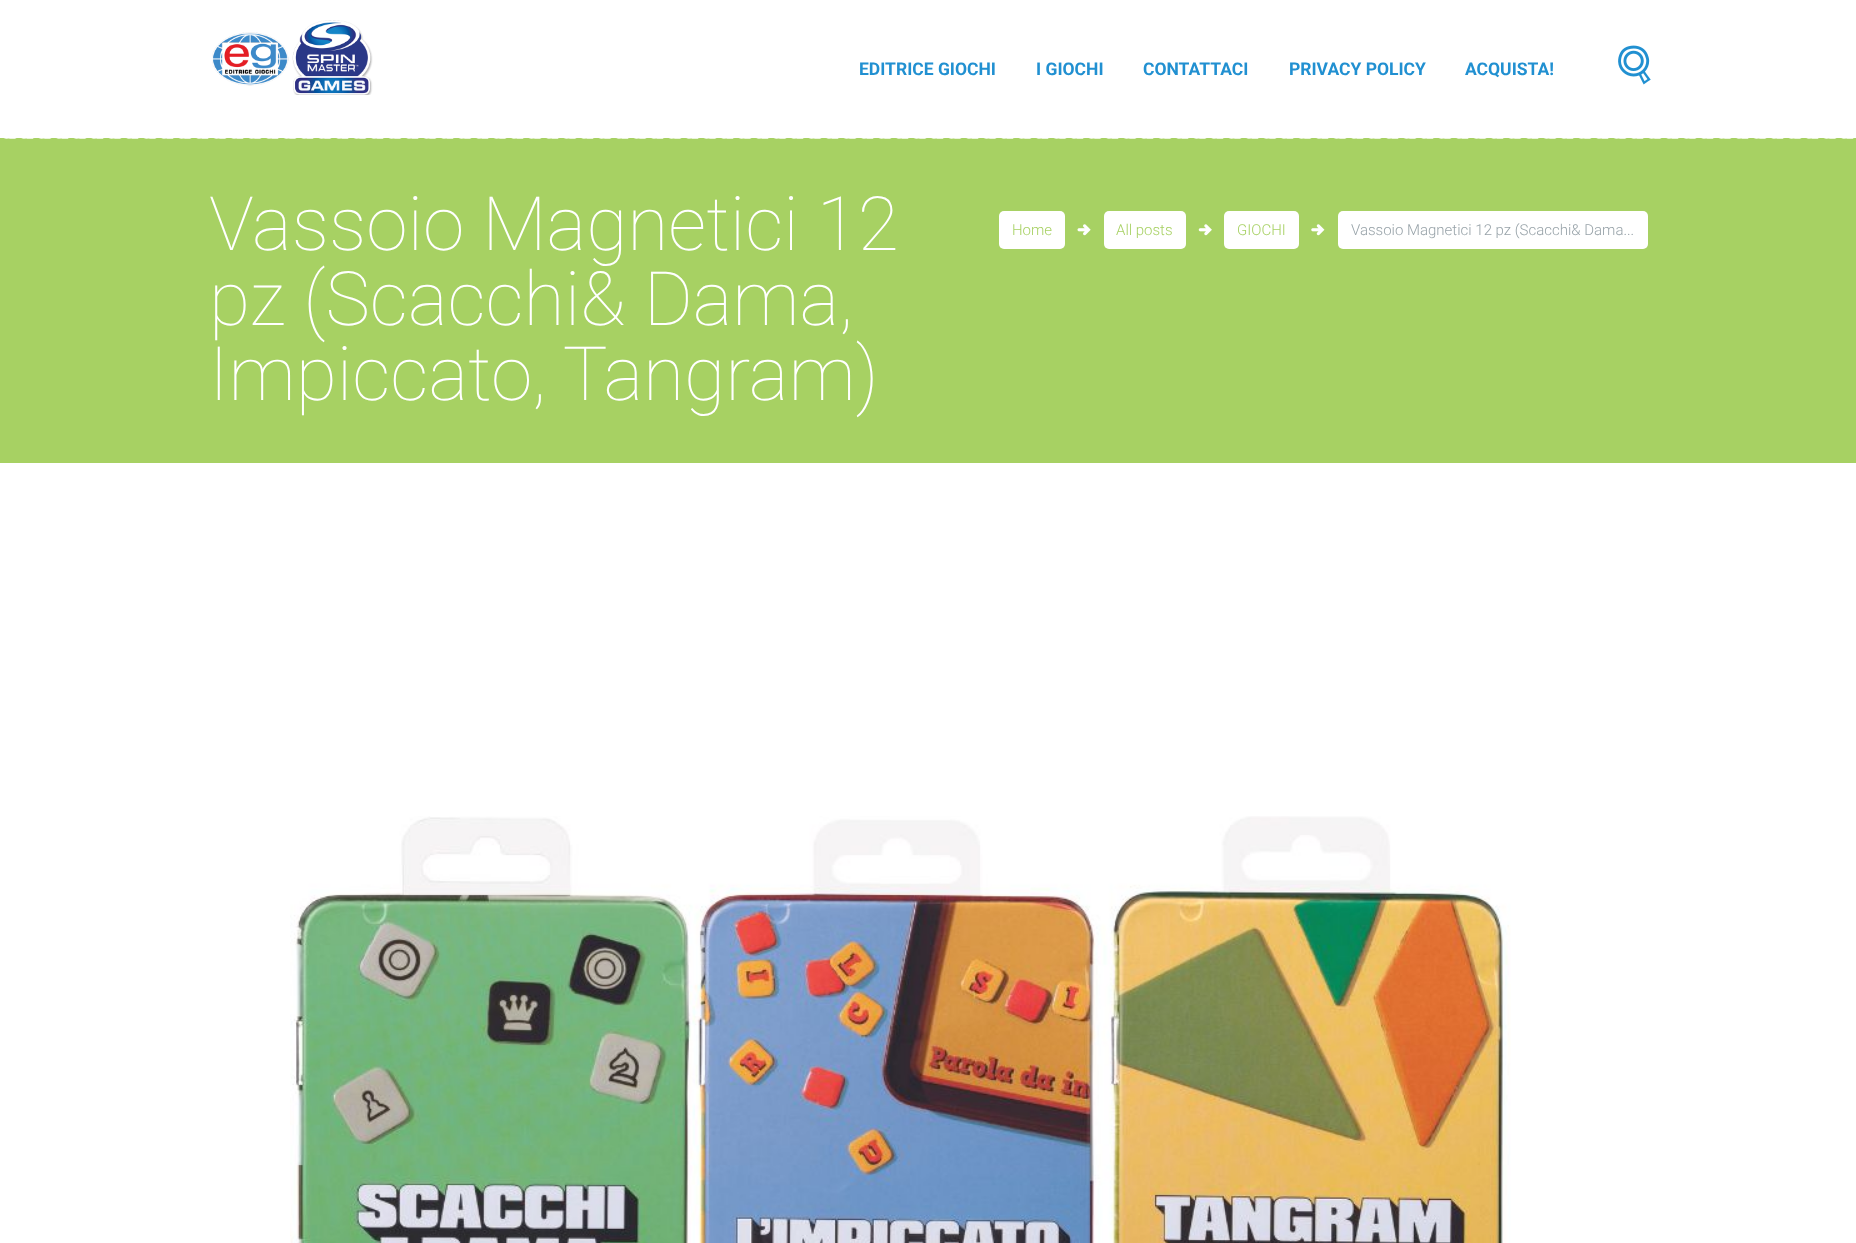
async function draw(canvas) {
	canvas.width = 1856;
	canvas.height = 1243;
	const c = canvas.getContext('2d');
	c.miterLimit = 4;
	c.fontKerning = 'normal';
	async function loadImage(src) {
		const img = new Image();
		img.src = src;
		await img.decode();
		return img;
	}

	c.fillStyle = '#fff';
	c.fillRect(0, 0, 1856, 1243);
	c.drawImage(await loadImage('img1.png'), 212, 20, 161, 75);
	c.font = 'bold 17.5px Roboto';
	c.fillStyle = '#2190d1';
	for (const [text, x, y] of [
		['EDITRICE GIOCHI', 859, 75],
		['I GIOCHI', 1036, 75],
		['CONTATTACI', 1143, 75],
		['PRIVACY POLICY', 1289, 75],
		['ACQUISTA!', 1465, 75],
	]) {
		c.fillText(text, x, y);
	}
	c.drawImage(await loadImage('img2.png'), 1618, 45, 33, 40);
	c.fillStyle = '#a7d163';
	c.fillRect(0, 138, 1856, 325);
	c.drawImage(await loadImage('img3.png'), 3, 138, 1852, 1);
	c.font = '100 75px Roboto';
	c.fillStyle = '#fff';
	for (const [text, x, y] of [
		['Vassoio Magnetici 12', 209, 250],
		['pz (Scacchi& Dama,', 209, 325],
		['Impiccato, Tangram)', 209, 400],
	]) {
		c.fillText(text, x, y);
	}
	c.beginPath();
	c.roundRect(999, 211, 66, 38, 5);
	c.fill();
	c.font = '300 15px Roboto';
	c.fillStyle = '#a7d163';
	c.fillText('Home', 1012, 235);
	c.drawImage(await loadImage('img4.png'), 1077, 224, 14, 12);
	c.fillStyle = '#fff';
	c.beginPath();
	c.roundRect(1104, 211, 82, 38, 5);
	c.fill();
	c.fillStyle = '#a7d163';
	c.fillText('All posts', 1116, 235);
	c.drawImage(await loadImage('img5.png'), 1198, 224, 14, 12);
	c.fillStyle = '#fff';
	c.beginPath();
	c.roundRect(1224, 211, 75, 38, 5);
	c.fill();
	c.fillStyle = '#a7d163';
	c.fillText('GIOCHI', 1237, 235);
	c.drawImage(await loadImage('img6.png'), 1311, 224, 14, 12);
	c.fillStyle = '#fff';
	c.beginPath();
	c.roundRect(1338, 211, 310, 38, 5);
	c.fill();
	c.fillStyle = '#98a3a9';
	c.fillText('Vassoio Magnetici 12 pz (Scacchi& Dama...', 1351, 235);
	c.drawImage(await loadImage('img7.png'), 290, 816, 1221, 427);
}

draw(document.querySelector('canvas'));
